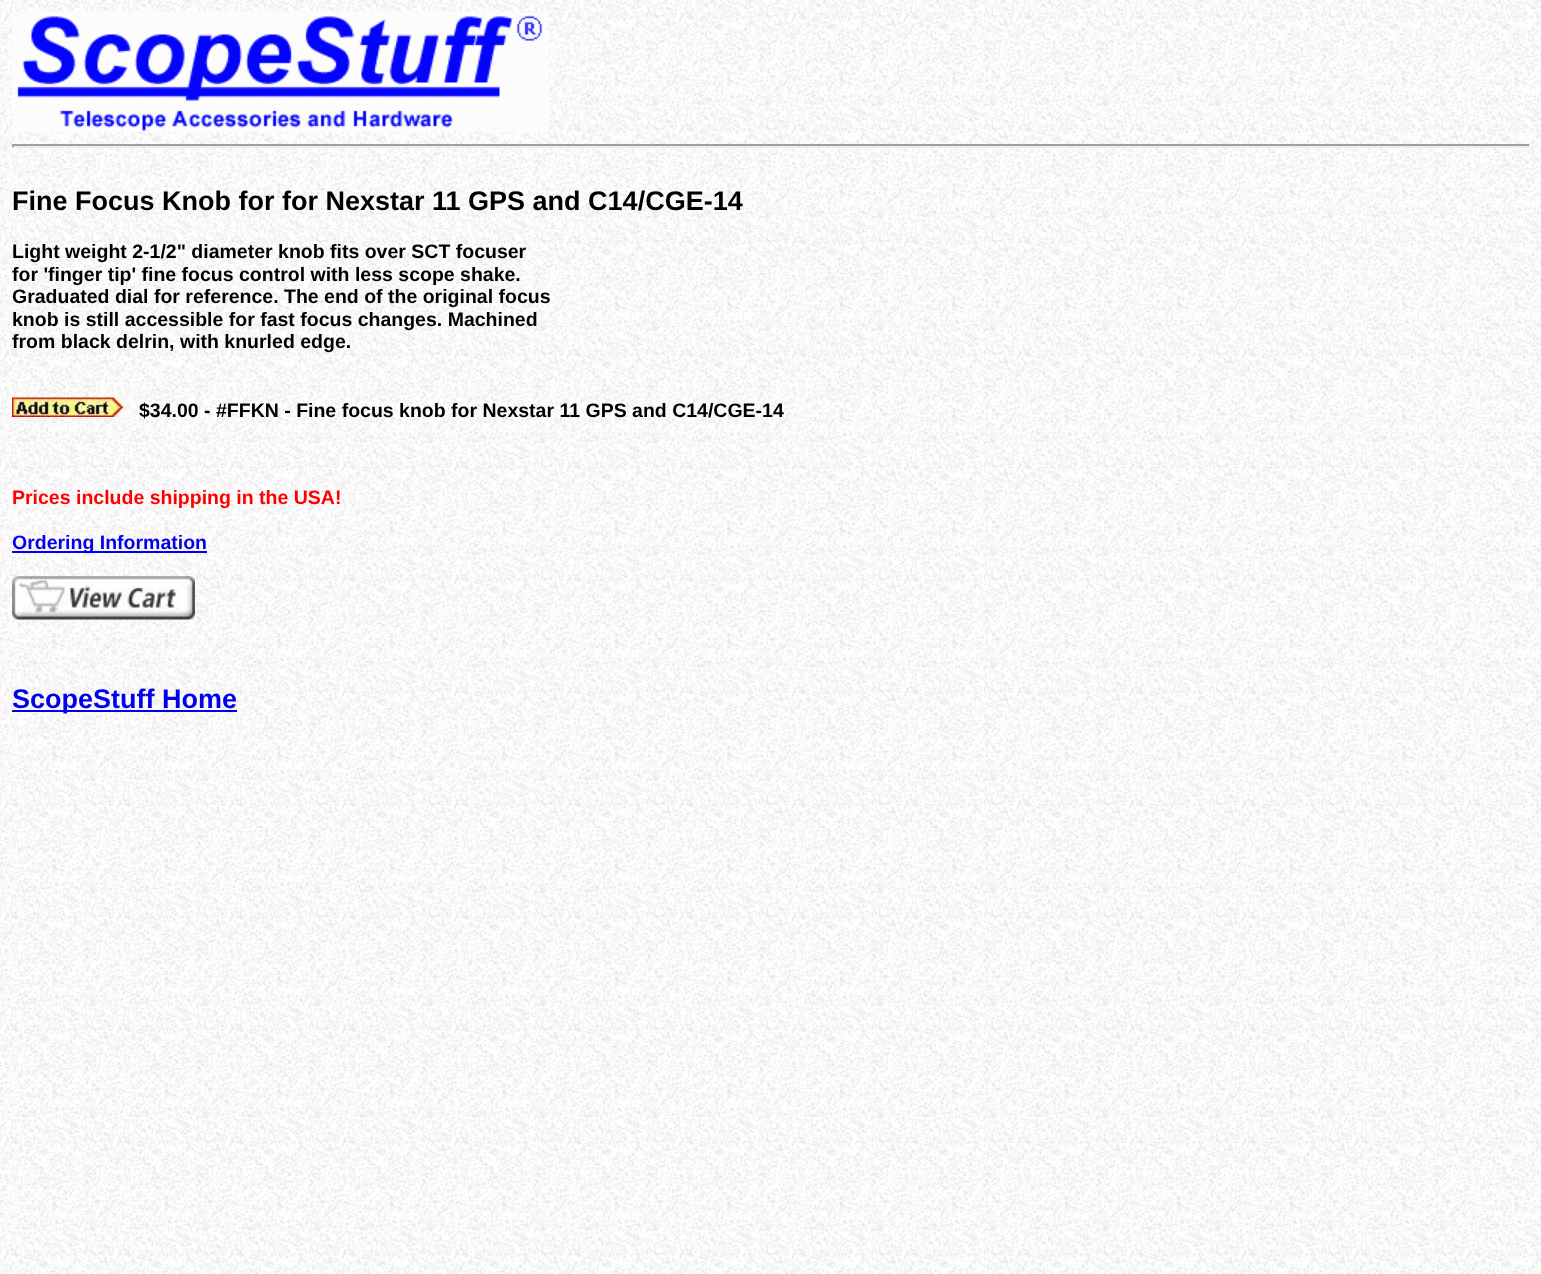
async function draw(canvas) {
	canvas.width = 1541;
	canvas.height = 1274;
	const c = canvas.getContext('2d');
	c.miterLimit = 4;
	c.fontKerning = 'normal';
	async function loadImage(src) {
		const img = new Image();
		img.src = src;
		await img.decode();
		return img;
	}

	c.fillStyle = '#fff';
	c.fillRect(0, 0, 1541, 1274);
	c.drawImage(await loadImage('img1.png'), 0, 0, 1541, 1274);
	c.drawImage(await loadImage('img2.png'), 12, 12, 537, 120);
	for (const [x, y, w, h, color] of [
		[12, 144, 1518, 2, '#9f9f9f'],
		[1529, 144, 2, 3, '#eee'],
		[12, 146, 1518, 2, '#eee'],
		[12, 144, 2, 3, '#9f9f9f'],
	]) {
		c.fillStyle = color;
		c.fillRect(x, y, w, h);
	}
	c.font = 'bold 27px Liberation Sans';
	c.fillStyle = '#000';
	c.fillText('Fine Focus Knob for for Nexstar 11 GPS and C14/CGE-14', 12, 210);
	c.font = 'bold 19.5px Liberation Sans';
	for (const [text, x, y] of [
		['Light weight 2-1/2" diameter knob fits over SCT focuser', 12, 258],
		['for \'finger tip\' fine focus control with less scope shake.', 12, 281],
		['Graduated dial for reference. The end of the original focus', 12, 303],
		['knob is still accessible for fast focus changes. Machined', 12, 326],
		['from black delrin, with knurled edge.', 12, 348],
	]) {
		c.fillText(text, x, y);
	}
	c.drawImage(await loadImage('img3.png'), 12, 397, 122, 20);
	c.fillText('$34.00 - #FFKN - Fine focus knob for Nexstar 11 GPS and C14/CGE-14', 139, 417);
	c.fillStyle = '#f00';
	c.fillText('Prices include shipping in the USA!', 12, 504);
	c.fillStyle = '#00e';
	c.fillRect(12, 551, 195, 2);
	c.fillText('Ordering Information', 12, 549);
	c.drawImage(await loadImage('img4.png'), 12, 576, 183, 44);
	c.fillRect(12, 710, 225, 2);
	c.font = 'bold 27px Liberation Sans';
	c.fillText('ScopeStuff Home', 12, 708);
}

draw(document.querySelector('canvas'));
